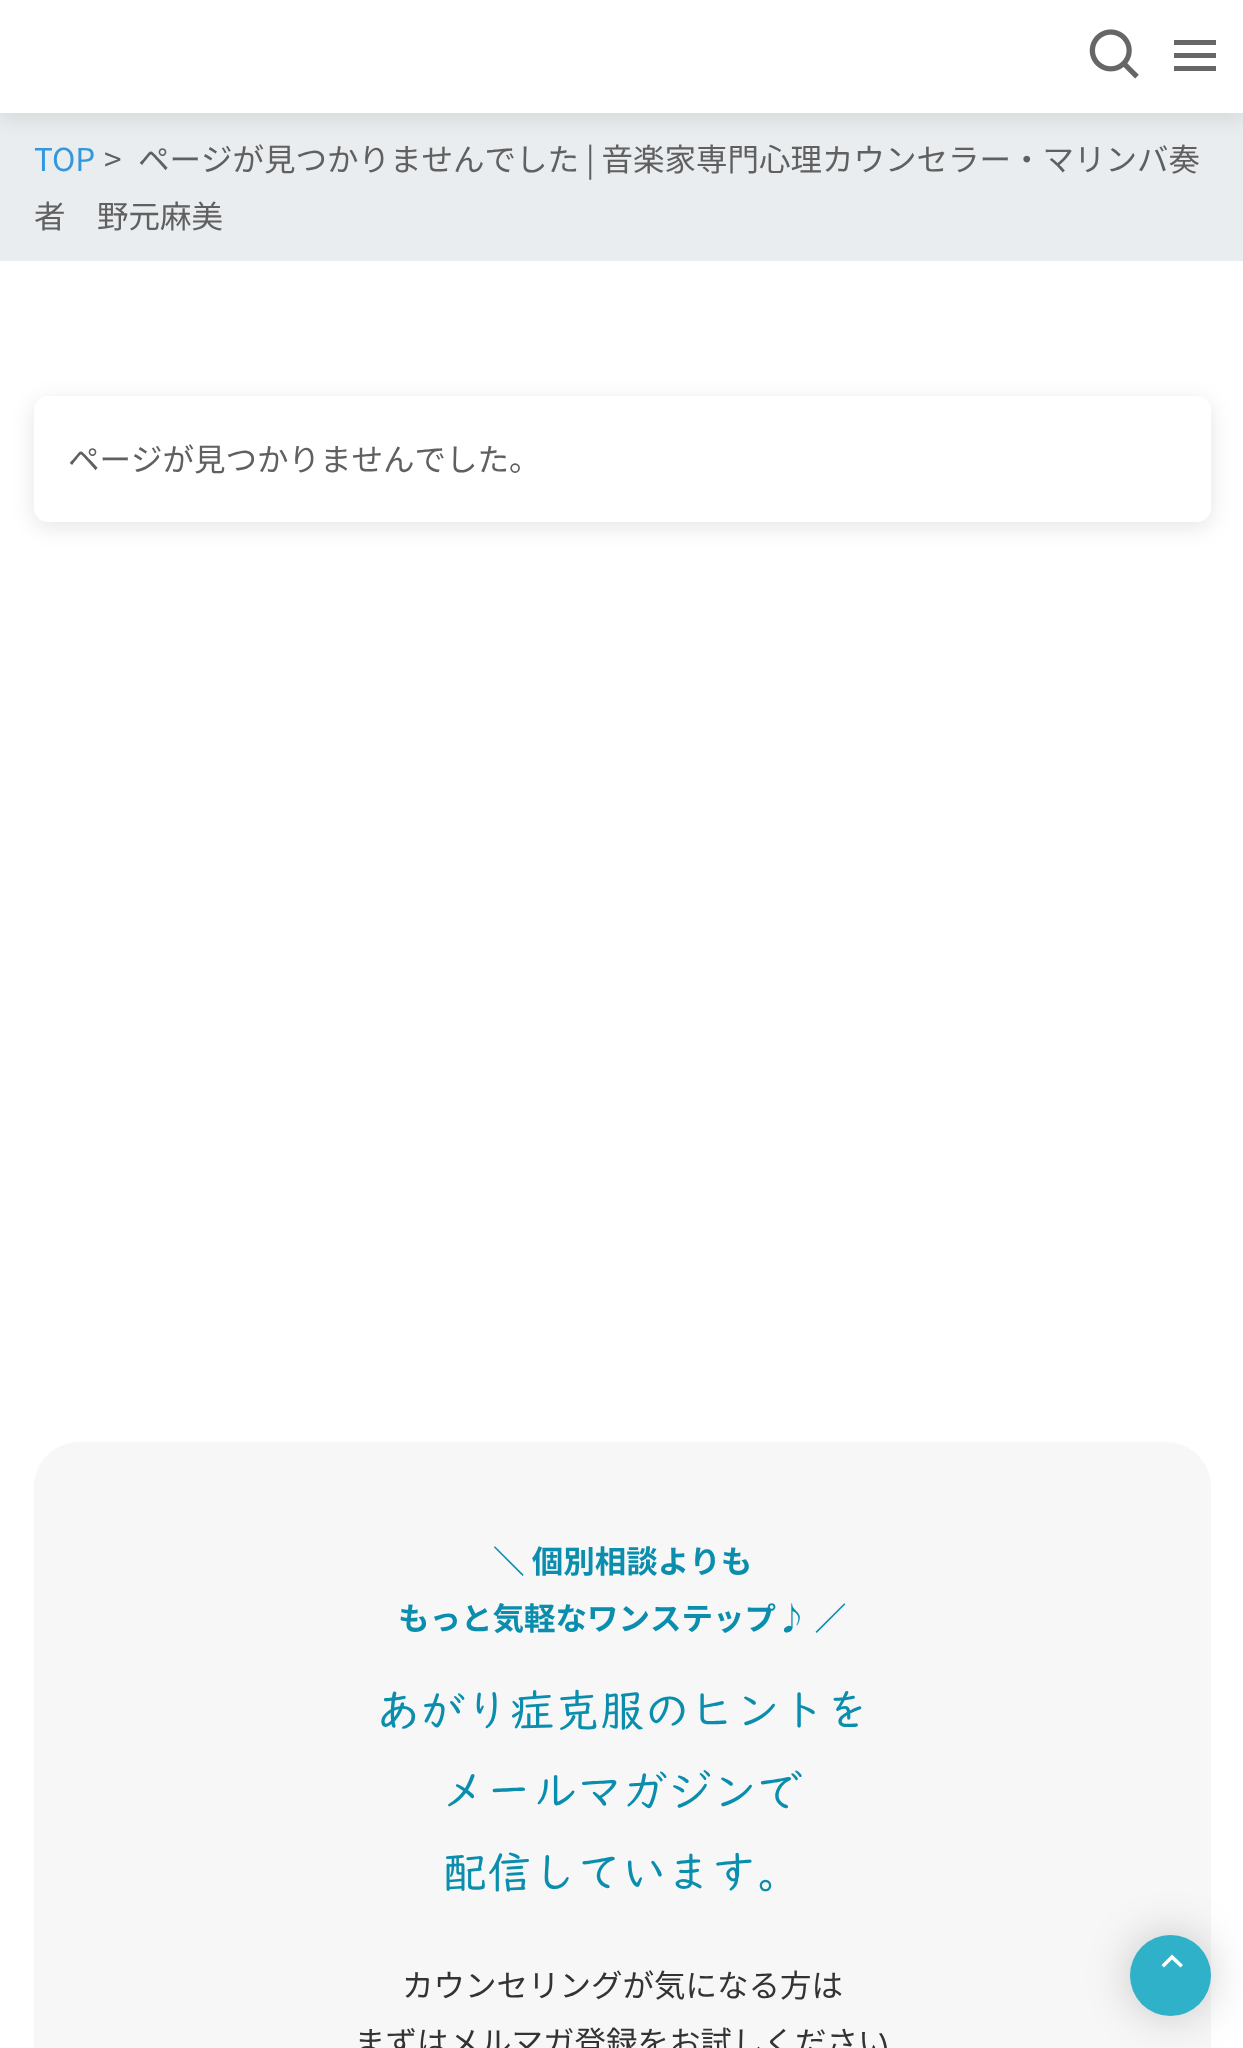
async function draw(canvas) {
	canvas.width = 1243;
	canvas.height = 2048;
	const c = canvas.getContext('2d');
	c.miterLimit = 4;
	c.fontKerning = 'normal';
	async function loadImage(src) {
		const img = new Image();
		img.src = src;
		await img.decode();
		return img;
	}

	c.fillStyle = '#fff';
	c.fillRect(0, 0, 1243, 2048);
	c.fillStyle = '#eaedef';
	c.fillRect(0, 113, 1243, 148);
	c.fillStyle = '#0000001a';
	c.filter = 'blur(11px)';
	c.beginPath();
	c.rect(0, 5, 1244, 112);
	c.fill();
	c.filter = 'none';
	c.fillStyle = '#fff';
	c.fillRect(0, 0, 1243, 113);
	c.drawImage(await loadImage('img1.png'), 1089, 29, 50, 50);
	c.fillStyle = '#666';
	c.beginPath();
	c.moveTo(1174, 40);
	c.lineTo(1216, 40);
	c.lineTo(1216, 45);
	c.lineTo(1174, 45);
	c.closePath();
	c.moveTo(1174, 53);
	c.lineTo(1216, 53);
	c.lineTo(1216, 58);
	c.lineTo(1174, 58);
	c.closePath();
	c.moveTo(1174, 66);
	c.lineTo(1216, 66);
	c.lineTo(1216, 71);
	c.lineTo(1174, 71);
	c.closePath();
	c.fill();
	c.font = '31.5px Noto Sans JP';
	c.fillStyle = '#3398db';
	c.fillText('TOP', 34, 171);
	c.fillStyle = '#606060';
	for (const [text, x, y] of [
		['>', 104, 171],
		['ページが見つかりませんでした | 音楽家専門心理カウンセラー・マリンバ奏', 138, 171],
		['者　野元麻美', 34, 228],
	]) {
		c.fillText(text, x, y);
	}
	c.fillStyle = '#0000001a';
	c.filter = 'blur(11px)';
	c.beginPath();
	c.roundRect(34, 401, 1177, 126, 14);
	c.fill();
	c.filter = 'none';
	c.fillStyle = '#fff';
	c.beginPath();
	c.roundRect(34, 396, 1177, 126, 14);
	c.fill();
	c.fillStyle = '#606060';
	c.fillText('ページが見つかりませんでした。', 68, 471);
	c.fillStyle = '#f7f7f7';
	c.beginPath();
	c.roundRect(34, 1442, 1177, 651, 45);
	c.fill();
	c.font = 'bold 31.5px Noto Sans JP';
	c.fillStyle = '#0b8ead';
	c.fillText('＼ 個別相談よりも', 493, 1573);
	c.fillText('もっと気軽なワンステップ♪ ／', 398, 1630);
	c.font = '45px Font';
	for (const [text, x, y] of [
		['あがり症克服のヒントを', 375, 1727],
		['メールマガジンで', 442, 1808],
		['配信しています。', 442, 1889],
	]) {
		c.fillText(text, x, y);
	}
	c.font = '31.5px Noto Sans JP';
	c.fillStyle = '#333';
	c.fillText('カウンセリングが気になる方は', 402, 1997);
	c.fillText('まずはメルマガ登録をお試しください', 354, 2054);
	c.fillStyle = '#00000033';
	c.filter = 'blur(22.5px)';
	c.beginPath();
	c.roundRect(1130, 1935, 81, 81, 40.5);
	c.fill();
	c.filter = 'none';
	c.fillStyle = '#2eb1c9';
	c.beginPath();
	c.arc(1170.5, 1975.5, 40.5, 0, 2 * Math.PI);
	c.fill();
	c.fillStyle = '#fff';
	c.beginPath();
	c.moveTo(1161.5, 1965);
	c.lineTo(1164, 1967.5);
	c.lineTo(1172, 1959.5);
	c.lineTo(1180.5, 1967.5);
	c.lineTo(1183, 1965);
	c.lineTo(1172, 1954.5);
	c.closePath();
	c.fill();
}

draw(document.querySelector('canvas'));
